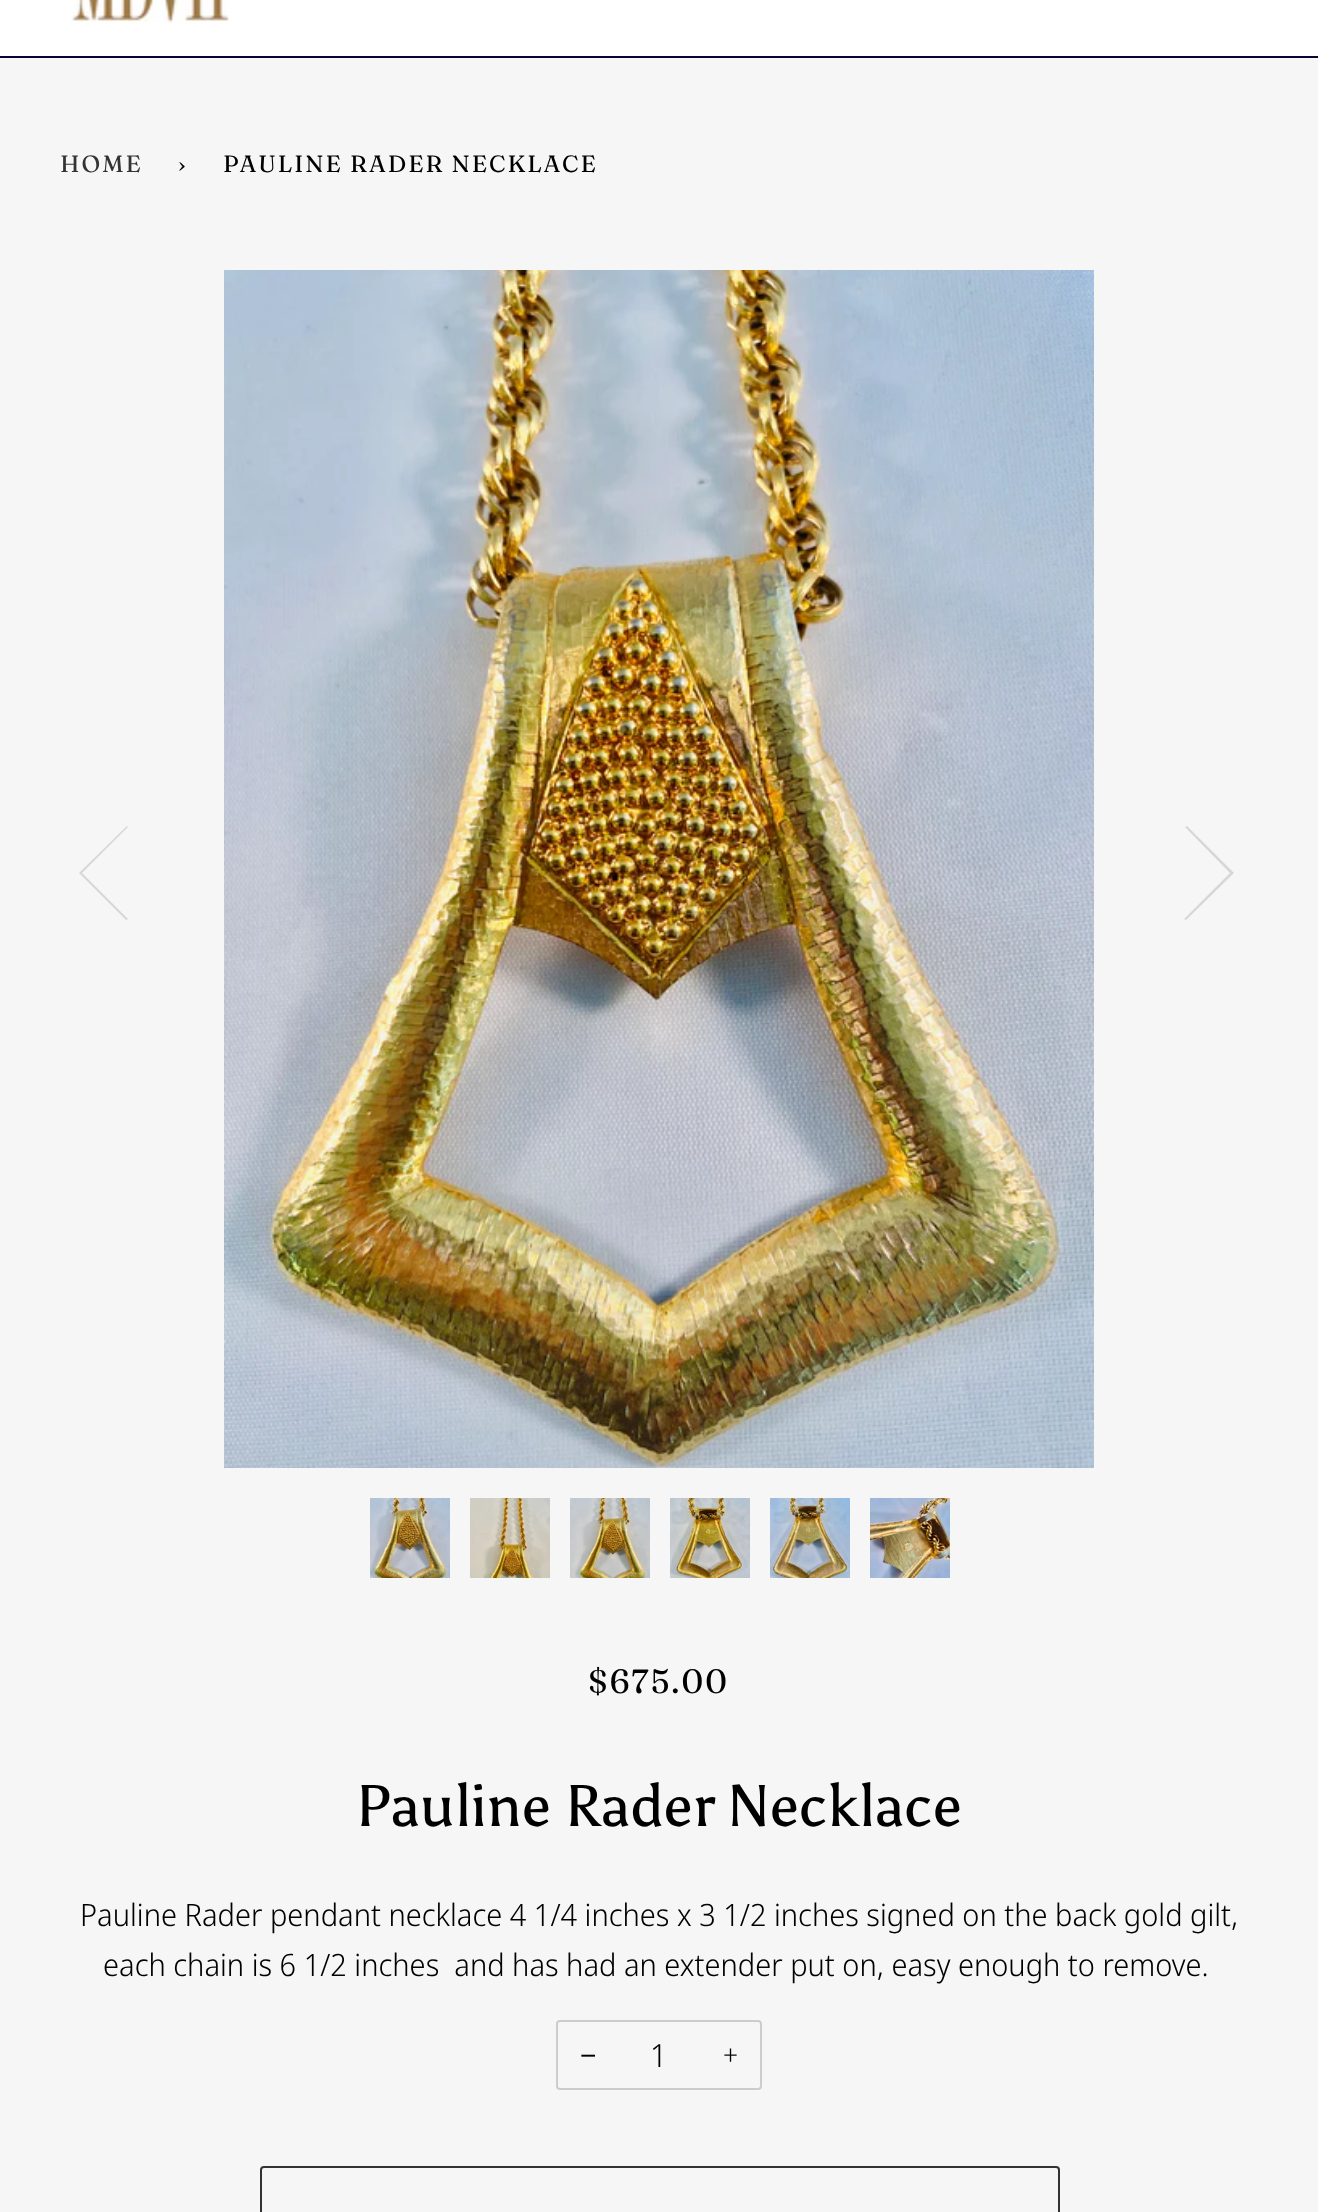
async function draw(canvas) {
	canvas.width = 1318;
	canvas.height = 2212;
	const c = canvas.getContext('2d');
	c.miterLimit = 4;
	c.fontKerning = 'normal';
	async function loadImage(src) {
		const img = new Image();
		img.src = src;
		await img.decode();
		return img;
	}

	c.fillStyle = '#fff';
	c.fillRect(0, 0, 1318, 2212);
	c.fillStyle = '#080338';
	c.fillRect(0, 56, 1318, 2);
	c.drawImage(await loadImage('img1.png'), 71, 0, 158, 24);
	c.fillStyle = '#f6f6f6';
	c.fillRect(0, 58, 1318, 2154);
	c.letterSpacing = '2px';
	c.font = '23.5px "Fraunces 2"';
	c.fillStyle = '#333';
	c.fillText('HOME', 60, 172);
	c.fillStyle = '#000';
	c.fillText('›', 178, 172);
	c.fillText('PAULINE RADER NECKLACE', 223, 172);
	c.fillStyle = '#d7d7d7';
	c.beginPath();
	c.moveTo(80, 874);
	c.lineTo(126, 920);
	c.lineTo(128, 919);
	c.lineTo(82, 873);
	c.lineTo(128, 827);
	c.lineTo(127, 826);
	c.lineTo(79, 873);
	c.closePath();
	c.fill();
	c.drawImage(await loadImage('img2.png'), 224, 270, 870, 1198);
	c.beginPath();
	c.moveTo(1233, 872);
	c.lineTo(1187, 826);
	c.lineTo(1185, 827);
	c.lineTo(1230, 873);
	c.lineTo(1184, 919);
	c.lineTo(1186, 920);
	c.lineTo(1234, 873);
	c.closePath();
	c.fill();
	c.drawImage(await loadImage('img3.png'), 370, 1498, 80, 80);
	c.drawImage(await loadImage('img4.png'), 470, 1498, 80, 80);
	c.drawImage(await loadImage('img5.png'), 570, 1498, 80, 80);
	c.drawImage(await loadImage('img6.png'), 670, 1498, 80, 80);
	c.drawImage(await loadImage('img7.png'), 770, 1498, 80, 80);
	c.drawImage(await loadImage('img8.png'), 870, 1498, 80, 80);
	c.font = '33.5px Fraunces';
	c.fillStyle = '#000';
	c.fillText('$675.00', 588, 1693);
	c.letterSpacing = '0px';
	c.font = '58.75px Asul';
	c.fillText('Pauline Rader Necklace', 355, 1826);
	c.font = '300 30.8px Noto Sans Display';
	c.fillText('Pauline Rader pendant necklace 4 1/4 inches x 3 1/2 inches signed on the back gold gilt,', 80, 1926);
	c.fillText('each chain is 6 1/2 inches  and has had an extender put on, easy enough to remove.', 103, 1976);
	c.beginPath();
	c.roundRect(557, 2021, 204, 68, 3);
	c.strokeStyle = '#ccc';
	c.lineWidth = 2;
	c.stroke();
	c.font = '28px Liberation Sans';
	c.fillText('−', 580, 2065);
	c.font = '300 32px Noto Sans Display';
	c.fillText('1', 650, 2067);
	c.font = '300 28px Noto Sans Display';
	c.fillText('+', 723, 2065);
	c.beginPath();
	c.roundRect(261, 2167, 798, 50, 3);
	c.strokeStyle = '#333';
	c.stroke();
}

draw(document.querySelector('canvas'));
